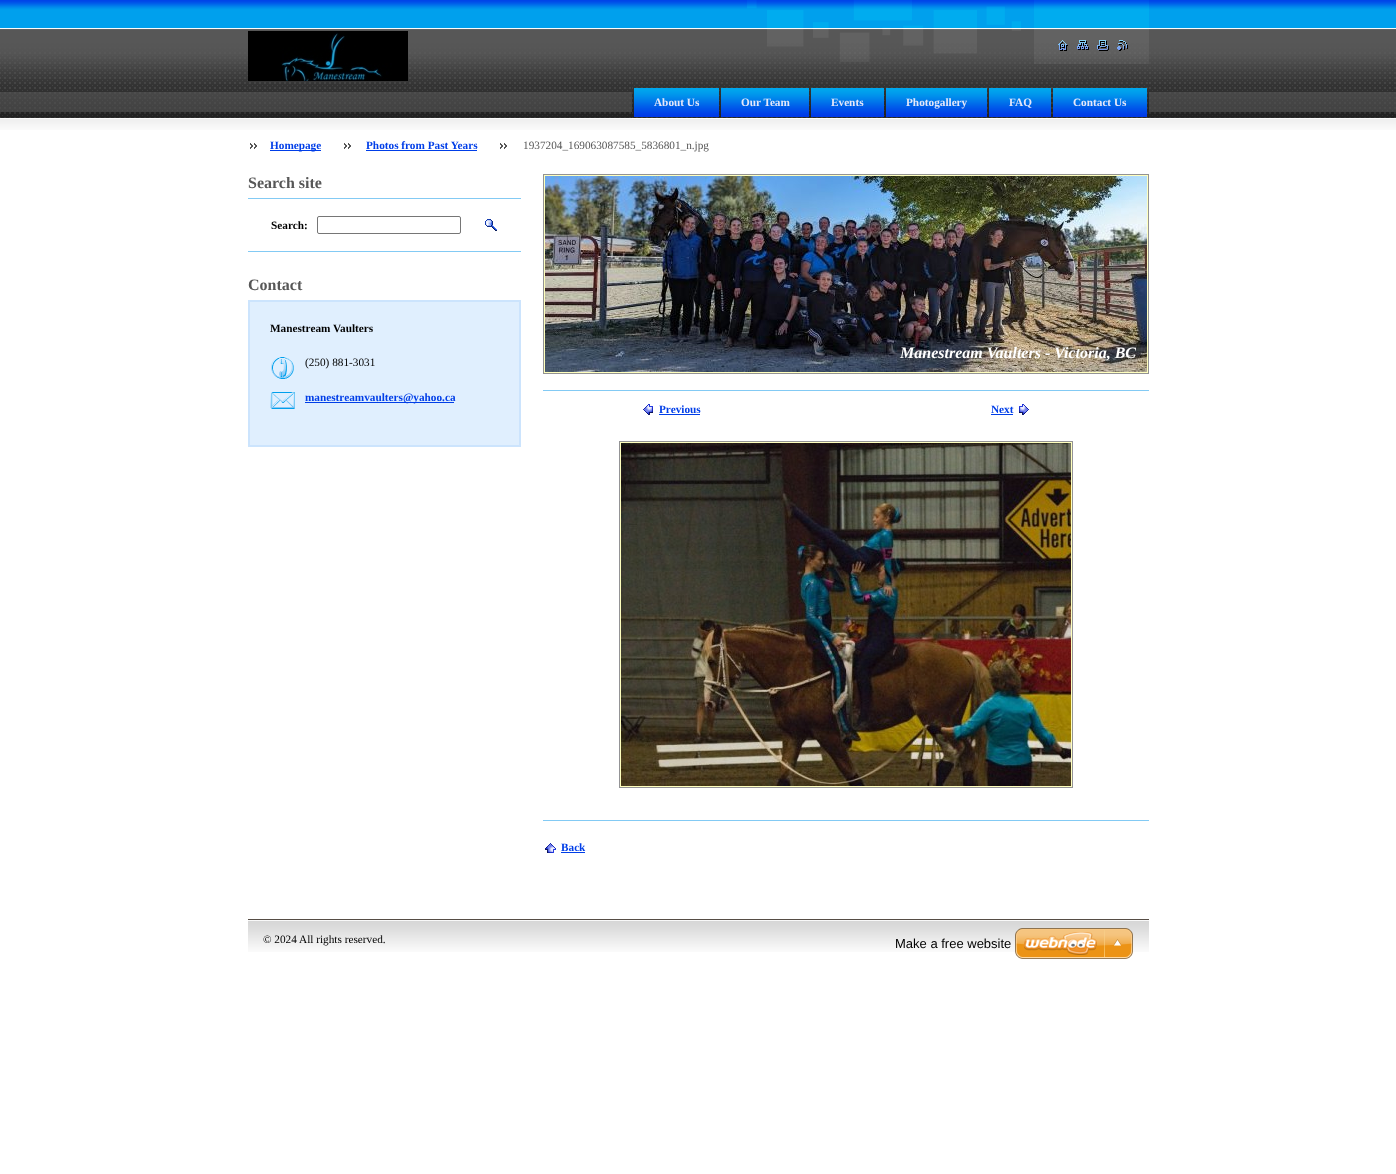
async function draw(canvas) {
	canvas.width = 1396;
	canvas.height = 1174;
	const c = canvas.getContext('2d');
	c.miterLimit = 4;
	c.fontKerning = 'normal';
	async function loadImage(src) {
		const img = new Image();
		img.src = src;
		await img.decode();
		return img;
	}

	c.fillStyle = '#fff';
	c.fillRect(0, 0, 1396, 1174);
	c.drawImage(await loadImage('img1.png'), 0, 0, 1396, 130);
	c.drawImage(await loadImage('img2.png'), 248, 0, 901, 118);
	c.drawImage(await loadImage('img3.png'), 248, 31, 160, 50);
	c.drawImage(await loadImage('img4.png'), 1058, 40, 10, 11);
	c.drawImage(await loadImage('img5.png'), 1077, 40, 12, 10);
	c.drawImage(await loadImage('img6.png'), 1097, 40, 12, 11);
	c.drawImage(await loadImage('img7.png'), 1117, 40, 11, 11);
	c.drawImage(await loadImage('img15.png'), 248, 118, 901, 12);
	c.drawImage(await loadImage('img8.png'), 632, 82, 517, 37);
	c.drawImage(await loadImage('img9.png'), 634, 88, 85, 29);
	c.font = 'bold 11.25px Liberation Serif';
	c.fillStyle = '#e6e8fa';
	c.fillText('About Us', 654, 106);
	c.drawImage(await loadImage('img10.png'), 721, 88, 88, 29);
	c.fillText('Our Team', 741, 106);
	c.drawImage(await loadImage('img11.png'), 811, 88, 73, 29);
	c.fillText('Events', 831, 106);
	c.drawImage(await loadImage('img12.png'), 886, 88, 101, 29);
	c.fillText('Photogallery', 906, 106);
	c.drawImage(await loadImage('img13.png'), 989, 88, 62, 29);
	c.fillText('FAQ', 1009, 106);
	c.drawImage(await loadImage('img14.png'), 1053, 88, 94, 29);
	c.fillText('Contact Us', 1073, 106);
	c.drawImage(await loadImage('img16.png'), 250, 143, 7, 6);
	c.fillStyle = '#003ee8';
	c.fillRect(270, 150, 51, 1);
	c.fillText('Homepage', 270, 149);
	c.drawImage(await loadImage('img16.png'), 344, 143, 7, 6);
	c.fillText('Photos from Past Years', 366, 149);
	c.fillRect(366, 150, 111, 1);
	c.drawImage(await loadImage('img16.png'), 500, 143, 7, 6);
	c.font = '11.25px Liberation Serif';
	c.fillStyle = '#575757';
	c.fillText('1937204_169063087585_5836801_n.jpg', 523, 149);
	c.font = 'bold 16px Liberation Serif';
	c.fillText('Search site', 248, 188);
	c.fillStyle = '#83caf4';
	c.fillRect(248, 198, 273, 1);
	c.fillRect(248, 251, 273, 1);
	c.font = 'bold 11.25px Liberation Serif';
	c.fillStyle = '#000';
	c.fillText('Search:', 271, 229);
	c.beginPath();
	c.roundRect(317.5, 216.5, 143, 17, 1.5);
	c.strokeStyle = '#767676';
	c.stroke();
	c.drawImage(await loadImage('img17.png'), 485, 219, 12, 12);
	c.font = 'bold 16px Liberation Serif';
	c.fillStyle = '#575757';
	c.fillText('Contact', 248, 290);
	c.fillStyle = '#e0effe';
	c.beginPath();
	c.rect(249, 301, 271, 145);
	c.fill();
	c.strokeStyle = '#cce4fd';
	c.lineWidth = 2;
	c.stroke();
	c.font = 'bold 11.25px Liberation Serif';
	c.fillStyle = '#000';
	c.fillText('Manestream Vaulters', 270, 332);
	c.drawImage(await loadImage('img18.png'), 271, 357, 23, 22);
	c.font = '11.25px Liberation Serif';
	c.fillText('(250) 881-3031', 305, 366);
	c.drawImage(await loadImage('img19.png'), 270, 392, 25, 17);
	c.fillStyle = '#003ee8';
	c.fillRect(305, 402, 149, 1);
	c.font = 'bold 11.25px Liberation Serif';
	c.fillText('manestreamvaulters@yahoo.ca', 305, 401);
	c.strokeStyle = '#939393';
	c.lineWidth = 1;
	c.strokeRect(543.5, 174.5, 605, 199);
	c.strokeStyle = '#ffffbe';
	c.strokeRect(544.5, 175.5, 603, 197);
	c.drawImage(await loadImage('img20.png'), 545, 176, 602, 196);
	c.font = 'italic bold 16px Liberation Serif';
	c.fillStyle = '#fff';
	c.fillText('Manestream Vaulters - Victoria, BC', 900, 358);
	c.fillStyle = '#83caf4';
	c.fillRect(543, 390, 606, 1);
	c.fillRect(543, 820, 606, 1);
	c.drawImage(await loadImage('img21.png'), 643, 404, 10, 11);
	c.font = 'bold 11.25px Liberation Serif';
	c.fillStyle = '#003ee8';
	c.fillText('Previous', 659, 413);
	c.fillRect(659, 414, 41, 1);
	c.fillText('Next', 991, 413);
	c.fillRect(991, 414, 22, 1);
	c.drawImage(await loadImage('img22.png'), 1019, 404, 10, 11);
	c.strokeStyle = '#949496';
	c.strokeRect(619.5, 441.5, 453, 346);
	c.strokeStyle = '#ffffbe';
	c.strokeRect(620.5, 442.5, 451, 344);
	c.drawImage(await loadImage('img23.png'), 621, 443, 450, 343);
	c.drawImage(await loadImage('img24.png'), 545, 843, 11, 10);
	c.fillText('Back', 561, 851);
	c.fillRect(561, 852, 24, 1);
	c.drawImage(await loadImage('img25.png'), 248, 919, 901, 33);
	c.font = '11.25px Liberation Serif';
	c.fillStyle = '#000';
	c.fillText('© 2024 All rights reserved.', 263, 943);
	c.font = '13px Liberation Sans';
	c.fillText('Make a free website', 895, 948);
	c.drawImage(await loadImage('img26.png'), 1015, 928, 118, 31);
}

draw(document.querySelector('canvas'));
